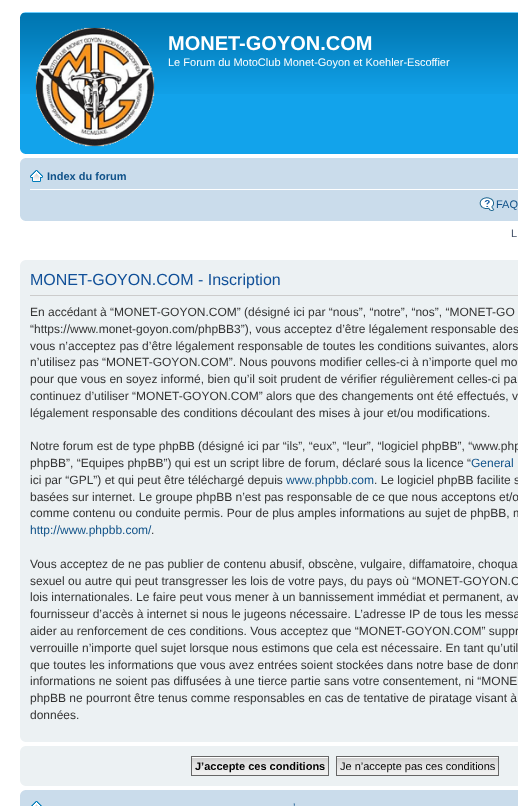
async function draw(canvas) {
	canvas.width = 518;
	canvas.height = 806;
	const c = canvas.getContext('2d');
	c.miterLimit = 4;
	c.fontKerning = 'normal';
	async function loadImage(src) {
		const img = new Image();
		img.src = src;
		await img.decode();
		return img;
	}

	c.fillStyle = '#fff';
	c.fillRect(0, 0, 518, 806);
	c.fillStyle = '#12a3eb';
	c.fillRect(20, 94, 498, 60);
	c.drawImage(await loadImage('img1.png'), 20, 12, 498, 82);
	c.drawImage(await loadImage('img2.png'), 20, 12, 5, 5);
	c.drawImage(await loadImage('img3.png'), 35, 27, 120, 120);
	c.font = 'bold 20px Liberation Sans';
	c.fillStyle = '#fff';
	c.fillText('MONET-GOYON.COM', 168, 50);
	c.font = '11px Liberation Sans';
	c.fillText('Le Forum du MotoClub Monet-Goyon et Koehler-Escoffier', 168, 66);
	c.drawImage(await loadImage('img4.png'), 20, 149, 5, 5);
	c.fillStyle = '#cadceb';
	c.fillRect(20, 158, 498, 63);
	c.drawImage(await loadImage('img5.png'), 20, 158, 5, 5);
	c.fillStyle = '#fff';
	c.fillRect(30, 189, 488, 1);
	c.drawImage(await loadImage('img6.png'), 30, 170, 13, 12);
	c.font = 'bold 11px Liberation Sans';
	c.fillStyle = '#105289';
	c.fillText('Index du forum', 47, 180);
	c.drawImage(await loadImage('img7.png'), 479, 197, 16, 14);
	c.font = '11px Liberation Sans';
	c.fillText('FAQ', 496, 208);
	c.drawImage(await loadImage('img8.png'), 20, 216, 5, 5);
	c.fillStyle = '#425067';
	c.fillText('L', 511, 237);
	c.fillStyle = '#ecf1f3';
	c.fillRect(20, 260, 498, 482);
	c.drawImage(await loadImage('img9.png'), 20, 260, 5, 5);
	c.fillStyle = '#ccc';
	c.fillRect(30, 295, 488, 1);
	c.font = '16px Liberation Sans';
	c.fillStyle = '#115098';
	c.fillText('MONET-GOYON.COM - Inscription', 30, 285);
	c.font = '12px Liberation Sans';
	c.fillStyle = '#333';
	for (const [text, x, y] of [
		['En accédant à “MONET-GOYON.COM” (désigné ici par “nous”, “notre”, “nos”, “MONET-GO', 30, 316],
		['“https://www.monet-goyon.com/phpBB3”), vous acceptez d’être légalement responsable des', 30, 333],
		['vous n’acceptez pas d’être légalement responsable de toutes les conditions suivantes, alors', 30, 350],
		['n’utilisez pas “MONET-GOYON.COM”. Nous pouvons modifier celles-ci à n’importe quel mo', 30, 366],
		['pour que vous en soyez informé, bien qu’il soit prudent de vérifier régulièrement celles-ci pa', 30, 383],
		['continuez d’utiliser “MONET-GOYON.COM” alors que des changements ont été effectués, v', 30, 400],
		['légalement responsable des conditions découlant des mises à jour et/ou modifications.', 30, 417],
		['Notre forum est de type phpBB (désigné ici par “ils”, “eux”, “leur”, “logiciel phpBB”, “www.php', 30, 450],
		['phpBB”, “Equipes phpBB”) qui est un script libre de forum, déclaré sous la licence “', 30, 467],
	]) {
		c.fillText(text, x, y);
	}
	c.fillStyle = '#105289';
	c.fillText('General', 471, 467);
	c.fillStyle = '#333';
	c.fillText('ici par “GPL”) et qui peut être téléchargé depuis', 30, 484);
	c.fillStyle = '#105289';
	c.fillText('www.phpbb.com', 286, 484);
	c.fillStyle = '#333';
	for (const [text, x, y] of [
		['. Le logiciel phpBB facilite s', 374, 484],
		['basées sur internet. Le groupe phpBB n’est pas responsable de ce que nous acceptons et/o', 30, 501],
		['comme contenu ou conduite permis. Pour de plus amples informations au sujet de phpBB, m', 30, 517],
	]) {
		c.fillText(text, x, y);
	}
	c.fillStyle = '#105289';
	c.fillText('http://www.phpbb.com/', 30, 534);
	c.fillStyle = '#333';
	for (const [text, x, y] of [
		['.', 151, 534],
		['Vous acceptez de ne pas publier de contenu abusif, obscène, vulgaire, diffamatoire, choqua', 30, 568],
		['sexuel ou autre qui peut transgresser les lois de votre pays, du pays où “MONET-GOYON.C', 30, 585],
		['lois internationales. Le faire peut vous mener à un bannissement immédiat et permanent, av', 30, 601],
		['fournisseur d’accès à internet si nous le jugeons nécessaire. L’adresse IP de tous les messa', 30, 618],
		['aider au renforcement de ces conditions. Vous acceptez que “MONET-GOYON.COM” suppr', 30, 635],
		['verrouille n’importe quel sujet lorsque nous estimons que cela est nécessaire. En tant qu’util', 30, 652],
		['que toutes les informations que vous avez entrées soient stockées dans notre base de donn', 30, 669],
		['informations ne soient pas diffusées à une tierce partie sans votre consentement, ni “MONE', 30, 685],
		['phpBB ne pourront être tenus comme responsables en cas de tentative de piratage visant à', 30, 702],
		['données.', 30, 719],
	]) {
		c.fillText(text, x, y);
	}
	c.drawImage(await loadImage('img10.png'), 20, 737, 5, 5);
	c.fillStyle = '#ecf1f3';
	c.fillRect(20, 746, 498, 40);
	c.drawImage(await loadImage('img9.png'), 20, 746, 5, 5);
	c.drawImage(await loadImage('img11.png'), 192, 757, 136, 18);
	c.strokeStyle = '#666';
	c.strokeRect(191.5, 756.5, 137, 19);
	c.font = 'bold 11px Liberation Sans';
	c.fillStyle = '#000';
	c.fillText('J’accepte ces conditions', 195, 770);
	c.drawImage(await loadImage('img12.png'), 337, 757, 161, 18);
	c.strokeRect(336.5, 756.5, 162, 19);
	c.font = '11px Liberation Sans';
	c.fillText('Je n’accepte pas ces conditions', 340, 770);
	c.drawImage(await loadImage('img10.png'), 20, 781, 5, 5);
	c.fillStyle = '#cadceb';
	c.fillRect(20, 790, 498, 16);
	c.drawImage(await loadImage('img5.png'), 20, 790, 5, 5);
	c.drawImage(await loadImage('img13.png'), 31, 801, 11, 5);
	c.fillStyle = '#105289';
	c.fillText('’', 293, 811);
}

draw(document.querySelector('canvas'));
